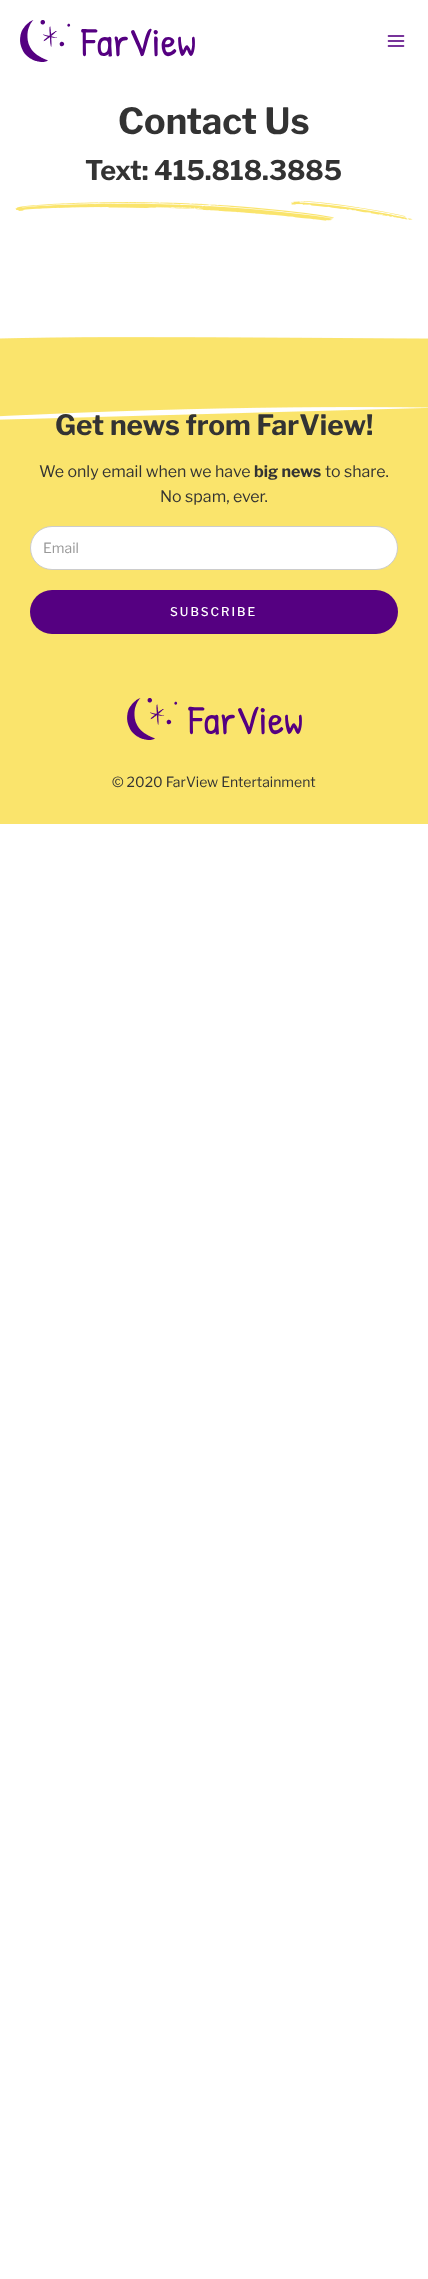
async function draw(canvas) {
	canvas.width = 428;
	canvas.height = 2279;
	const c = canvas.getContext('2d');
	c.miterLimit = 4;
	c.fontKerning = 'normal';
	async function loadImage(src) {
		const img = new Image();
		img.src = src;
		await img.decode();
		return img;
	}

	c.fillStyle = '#fff';
	c.fillRect(0, 0, 428, 2279);
	c.drawImage(await loadImage('img1.png'), 20, 20, 175, 42);
	c.drawImage(await loadImage('img2.png'), 387, 35, 18, 12);
	c.font = 'bold 36px Libre Franklin';
	c.fillStyle = '#333';
	c.fillText('Contact Us', 118, 134);
	c.font = 'bold 27px Libre Franklin';
	c.fillText('Text: 415.818.3885', 85, 180);
	c.drawImage(await loadImage('img3.png'), 15, 201, 398, 20);
	c.drawImage(await loadImage('img4.png'), 0, 337, 428, 487);
	c.font = 'bold 28px Libre Franklin';
	c.fillText('Get news from FarView!', 55, 435);
	c.font = '16px Libre Franklin';
	c.fillText('We only email when we have', 39, 477);
	c.font = 'bold 16px Libre Franklin';
	c.fillText('big news', 254, 477);
	c.font = '16px Libre Franklin';
	c.fillText('to share.', 325, 477);
	c.fillText('No spam, ever.', 160, 502);
	c.fillStyle = '#fff';
	c.beginPath();
	c.roundRect(30.5, 526.5, 367, 43, 21.5);
	c.fill();
	c.strokeStyle = '#ccc';
	c.stroke();
	c.font = '14px Libre Franklin';
	c.fillStyle = '#999';
	c.fillText('Email', 43, 553);
	c.fillStyle = '#550081';
	c.beginPath();
	c.roundRect(30, 590, 368, 44, 22);
	c.fill();
	c.letterSpacing = '2px';
	c.font = '500 12px Libre Franklin';
	c.fillStyle = '#fff';
	c.fillText('SUBSCRIBE', 170, 616);
	c.drawImage(await loadImage('img5.png'), 127, 698, 175, 42);
	c.letterSpacing = '0px';
	c.font = '14px Libre Franklin';
	c.fillStyle = '#333';
	c.fillText('© 2020 FarView Entertainment', 112, 787);
}

draw(document.querySelector('canvas'));
